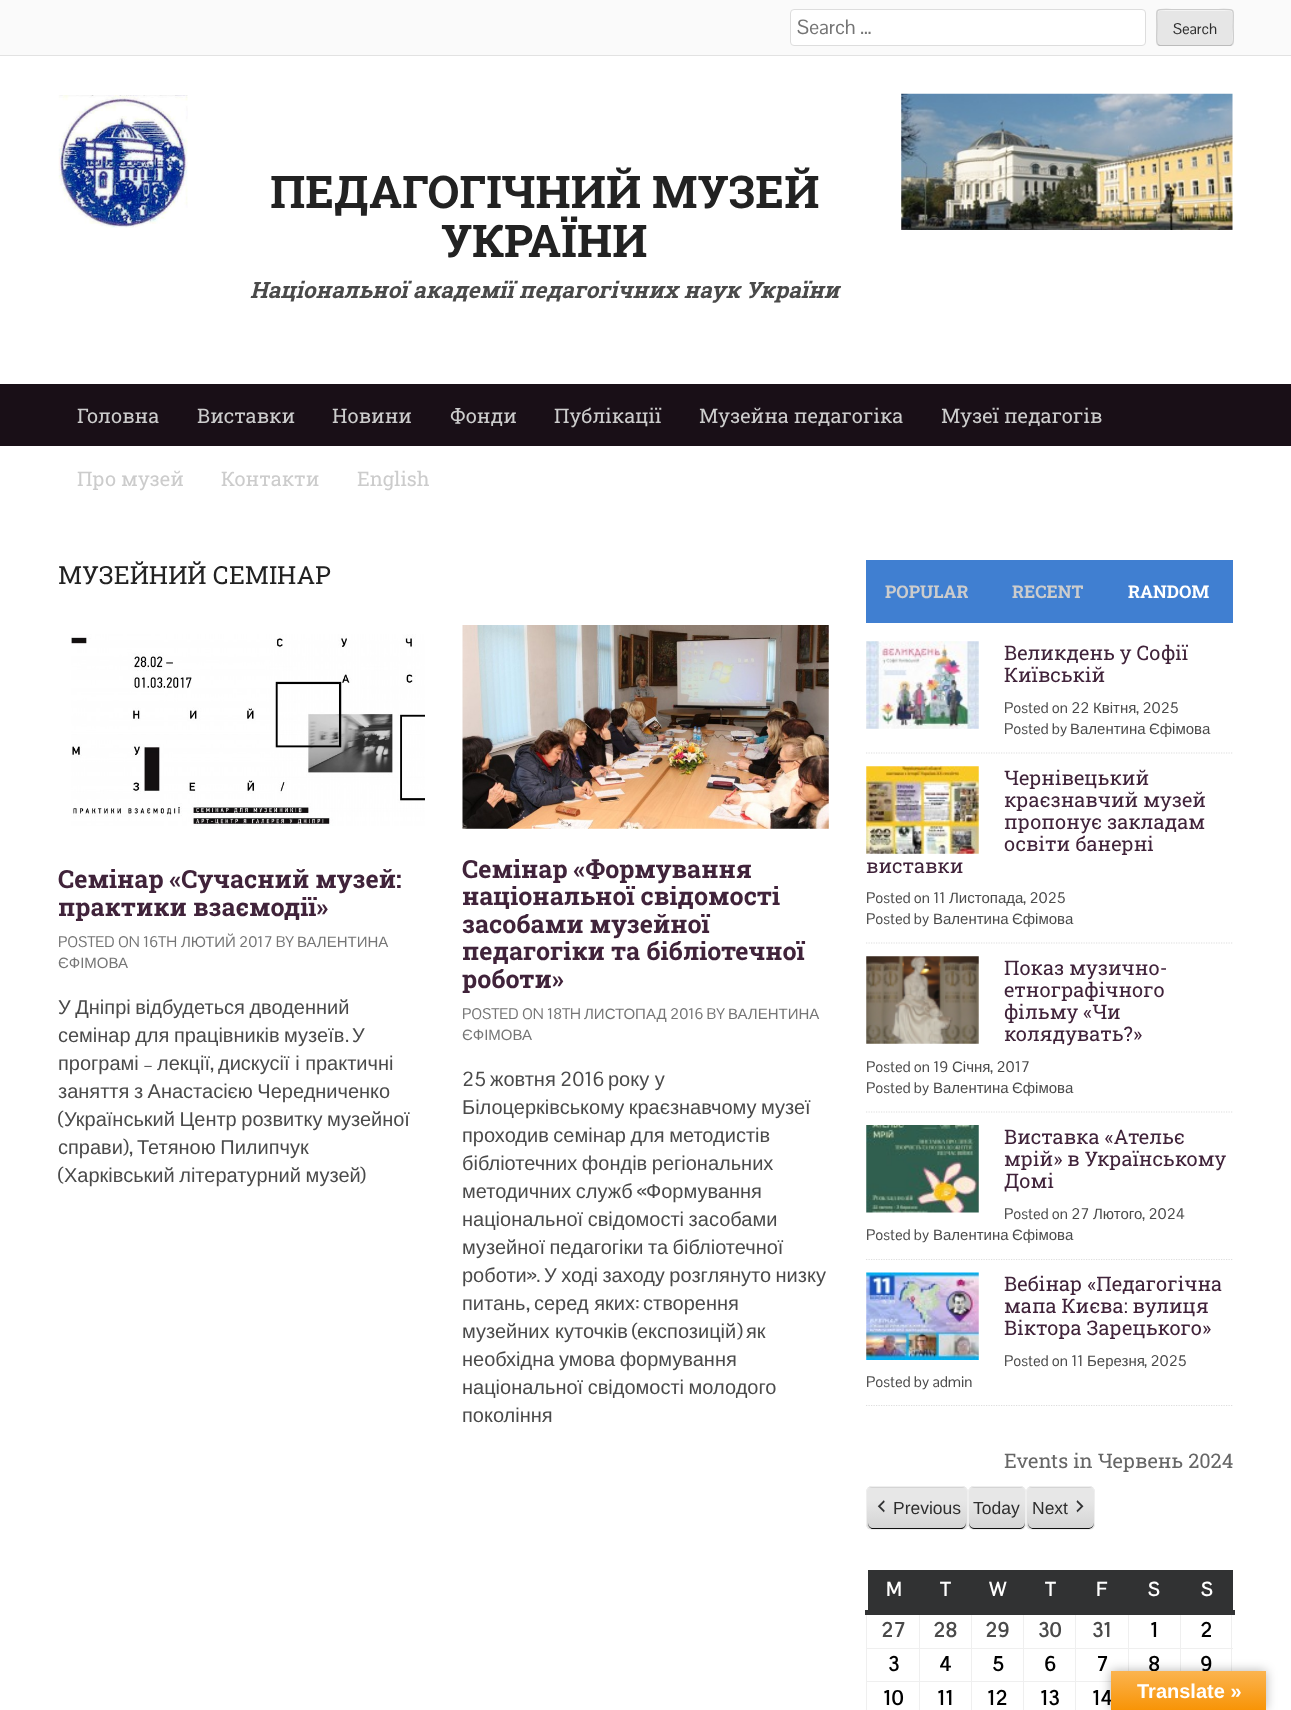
async function draw(canvas) {
	canvas.width = 1291;
	canvas.height = 1710;
	const c = canvas.getContext('2d');
	c.miterLimit = 4;
	c.fontKerning = 'normal';
	async function loadImage(src) {
		const img = new Image();
		img.src = src;
		await img.decode();
		return img;
	}
	let gradient;

	c.fillStyle = '#fff';
	c.fillRect(0, 0, 1291, 1710);
	c.fillStyle = '#fafafa';
	c.fillRect(0, 0, 1291, 55);
	c.fillStyle = '#e2e2e2';
	c.fillRect(0, 55, 1291, 1);
	c.fillStyle = '#fff';
	c.beginPath();
	c.roundRect(790.5, 9.5, 355, 36, 3.5);
	c.fill();
	c.strokeStyle = '#ddd';
	c.stroke();
	c.font = '20px Pontano Sans';
	c.fillStyle = '#757575';
	c.fillText('Search …', 797, 34);
	c.fillStyle = '#e6e6e6';
	c.beginPath();
	c.roundRect(1156, 9, 78, 37, 4);
	c.fill();
	c.fillStyle = '#f3f3f3';
	c.beginPath();
	c.moveTo(1160, 11);
	c.lineTo(1230, 11);
	c.bezierCurveTo(1234, 11, 1232, 23, 1232, 24);
	c.lineTo(1232, 45);
	c.bezierCurveTo(1233, 44, 1233, 43, 1233, 42);
	c.lineTo(1233, 12);
	c.bezierCurveTo(1233, 11, 1232, 10, 1230, 10);
	c.lineTo(1160, 10);
	c.bezierCurveTo(1159, 10, 1158, 11, 1158, 12);
	c.lineTo(1158, 14);
	c.bezierCurveTo(1158, 12, 1159, 11, 1160, 11);
	c.closePath();
	c.fill();
	c.beginPath();
	c.moveTo(1232, 44.5);
	c.lineTo(1230.5, 45.5);
	c.lineTo(1159.5, 45.5);
	c.lineTo(1158, 44.5);
	c.strokeStyle = '#bbb';
	c.lineWidth = 1.2;
	c.stroke();
	c.beginPath();
	c.moveTo(1158, 44.5);
	c.bezierCurveTo(1155.5, 42.5, 1157, 30.5, 1157, 27.5);
	c.bezierCurveTo(1157, 7.5, 1153, 9.5, 1171.5, 9.5);
	c.lineTo(1218.5, 9.5);
	c.bezierCurveTo(1237, 9.5, 1233, 7.5, 1233, 27.5);
	c.bezierCurveTo(1233, 30.5, 1234.5, 42.5, 1232, 44.5);
	c.strokeStyle = '#ccc';
	c.stroke();
	c.font = '15px Pontano Sans';
	c.fillStyle = '#2e2e2e';
	c.fillText('Search', 1173, 34);
	c.drawImage(await loadImage('img1.png'), 58, 95, 130, 133);
	c.font = 'bold 45px Roboto Slab';
	c.fillStyle = '#222';
	c.fillText('ПЕДАГОГІЧНИЙ МУЗЕЙ', 270, 208);
	c.fillText('УКРАЇНИ', 441, 257);
	c.font = 'italic bold 22.5px Roboto Slab';
	c.fillStyle = '#4a4a4a';
	c.fillText('Національної академії педагогічних наук України', 250, 298);
	c.drawImage(await loadImage('img2.png'), 901, 93, 332, 137);
	c.fillStyle = '#190f17';
	c.fillRect(0, 384, 1291, 62);
	c.font = '20px Roboto Slab';
	c.fillStyle = '#ccc';
	for (const [text, x, y] of [
		['Головна', 77, 423],
		['Виставки', 197, 423],
		['Новини', 332, 423],
		['Фонди', 450, 423],
		['Публікації', 554, 423],
		['Музейна педагогіка', 699, 423],
		['Музеї педагогів', 941, 423],
		['Про музей', 77, 486],
		['Контакти', 221, 486],
		['English', 357, 486],
	]) {
		c.fillText(text, x, y);
	}
	c.font = '25px Roboto Slab';
	c.fillStyle = '#222';
	c.fillText('МУЗЕЙНИЙ СЕМІНАР', 58, 584);
	c.drawImage(await loadImage('img3.png'), 71, 634, 354, 192);
	c.font = 'bold 25px Roboto Slab';
	c.fillStyle = '#40233a';
	c.fillText('Семінар «Сучасний музей:', 58, 888);
	c.fillText('практики взаємодії»', 58, 916);
	c.font = '15px Pontano Sans';
	c.fillStyle = '#757575';
	c.fillText('POSTED ON 16TH', 58, 947);
	c.font = '15px Liberation Sans';
	c.fillText('ЛЮТИЙ', 181, 947);
	c.font = '15px Pontano Sans';
	c.fillText('2017 BY', 239, 947);
	c.font = '15px Liberation Sans';
	c.fillText('ВАЛЕНТИНА', 297, 947);
	c.fillText('ЄФІМОВА', 58, 968);
	c.wordSpacing = '-1px';
	c.font = '20px Liberation Sans';
	c.fillStyle = '#4a4a4a';
	c.fillText('У Дніпрі відбудеться дводенний', 58, 1014);
	c.fillText('семінар для працівників музеїв', 58, 1042);
	c.wordSpacing = '0px';
	c.font = '20px Pontano Sans';
	c.fillText('.', 345, 1042);
	c.font = '20px Liberation Sans';
	c.fillText('У', 352, 1042);
	c.fillText('програмі', 58, 1070);
	c.font = '20px Pontano Sans';
	c.fillText('–', 143, 1070);
	c.font = '20px Liberation Sans';
	c.fillText('лекції', 157, 1070);
	c.fillText('дискусії і практичні', 218, 1070);
	c.font = '20px Pontano Sans';
	c.fillText(',', 210, 1070);
	c.wordSpacing = '-1px';
	c.font = '20px Liberation Sans';
	c.fillText('заняття з Анастасією Чередниченко', 58, 1098);
	c.wordSpacing = '0px';
	c.font = '20px Pontano Sans';
	c.fillText('(', 58, 1126);
	c.wordSpacing = '-1px';
	c.font = '20px Liberation Sans';
	c.fillText('Український Центр розвитку музейної', 64, 1126);
	c.wordSpacing = '0px';
	c.fillText('справи', 58, 1154);
	c.font = '20px Pontano Sans';
	c.fillText('),', 123, 1154);
	c.wordSpacing = '-1px';
	c.font = '20px Liberation Sans';
	c.fillText('Тетяною Пилипчук', 137, 1154);
	c.wordSpacing = '0px';
	c.font = '20px Pontano Sans';
	c.fillText('(', 58, 1182);
	c.wordSpacing = '-1px';
	c.font = '20px Liberation Sans';
	c.fillText('Харківський літературний музей', 64, 1182);
	c.wordSpacing = '0px';
	c.font = '20px Pontano Sans';
	c.fillText(')', 360, 1182);
	c.drawImage(await loadImage('img4.png'), 462, 625, 367, 204);
	c.font = 'bold 25px Roboto Slab';
	c.fillStyle = '#40233a';
	for (const [text, x, y] of [
		['Семінар «Формування', 462, 878],
		['національної свідомості', 462, 905],
		['засобами музейної', 462, 933],
		['педагогіки та бібліотечної', 462, 960],
		['роботи»', 462, 988],
	]) {
		c.fillText(text, x, y);
	}
	c.font = '15px Pontano Sans';
	c.fillStyle = '#757575';
	c.fillText('POSTED ON 18TH', 462, 1019);
	c.font = '15px Liberation Sans';
	c.fillText('ЛИСТОПАД', 584, 1019);
	c.font = '15px Pontano Sans';
	c.fillText('2016 BY', 670, 1019);
	c.font = '15px Liberation Sans';
	c.fillText('ВАЛЕНТИНА', 728, 1019);
	c.fillText('ЄФІМОВА', 462, 1040);
	c.font = '20px Pontano Sans';
	c.fillStyle = '#4a4a4a';
	c.fillText('25', 462, 1086);
	c.font = '20px Liberation Sans';
	c.fillText('жовтня', 490, 1086);
	c.font = '20px Pontano Sans';
	c.fillText('2016', 560, 1086);
	c.font = '20px Liberation Sans';
	c.fillText('року у', 608, 1086);
	c.wordSpacing = '-1px';
	for (const [text, x, y] of [
		['Білоцерківському краєзнавчому музеї', 462, 1114],
		['проходив семінар для методистів', 462, 1142],
		['бібліотечних фондів регіональних', 462, 1170],
		['методичних служб', 462, 1198],
	]) {
		c.fillText(text, x, y);
	}
	c.wordSpacing = '0px';
	c.font = '20px Pontano Sans';
	c.fillText('«', 637, 1198);
	c.font = '20px Liberation Sans';
	c.fillText('Формування', 646, 1198);
	c.wordSpacing = '-1px';
	c.fillText('національної свідомості засобами', 462, 1226);
	c.fillText('музейної педагогіки та бібліотечної', 462, 1254);
	c.wordSpacing = '0px';
	c.fillText('роботи', 462, 1282);
	c.font = '20px Pontano Sans';
	c.fillText('».', 527, 1282);
	c.wordSpacing = '-1px';
	c.font = '20px Liberation Sans';
	c.fillText('У ході заходу розглянуто низку', 544, 1282);
	c.wordSpacing = '0px';
	c.fillText('питань', 462, 1310);
	c.font = '20px Pontano Sans';
	c.fillText(',', 526, 1310);
	c.font = '20px Liberation Sans';
	c.fillText('серед яких', 534, 1310);
	c.font = '20px Pontano Sans';
	c.fillText(':', 635, 1310);
	c.font = '20px Liberation Sans';
	c.fillText('створення', 643, 1310);
	c.fillText('музейних куточків', 462, 1338);
	c.font = '20px Pontano Sans';
	c.fillText('(', 632, 1338);
	c.font = '20px Liberation Sans';
	c.fillText('експозицій', 637, 1338);
	c.font = '20px Pontano Sans';
	c.fillText(')', 737, 1338);
	c.font = '20px Liberation Sans';
	c.fillText('як', 746, 1338);
	c.wordSpacing = '-1px';
	c.fillText('необхідна умова формування', 462, 1366);
	c.fillText('національної свідомості молодого', 462, 1394);
	c.wordSpacing = '0px';
	c.fillText('покоління', 462, 1422);
	c.fillStyle = '#407fd1';
	c.fillRect(866, 560, 367, 63);
	c.font = 'bold 17.5px Roboto Slab';
	c.fillStyle = '#ccc';
	c.fillText('POPULAR', 885, 598);
	c.fillText('RECENT', 1012, 598);
	c.fillStyle = '#fff';
	c.fillText('RANDOM', 1128, 598);
	c.beginPath();
	c.moveTo(866, 753);
	c.lineTo(1232.5, 753);
	c.strokeStyle = '#ddd';
	c.setLineDash([1.25, 1.25]);
	c.stroke();
	c.drawImage(await loadImage('img5.png'), 866, 641, 113, 88);
	c.font = '20px Roboto Slab';
	c.fillStyle = '#40233a';
	c.fillText('Великдень у Софії', 1004, 660);
	c.fillText('Київській', 1004, 682);
	c.font = '15px Pontano Sans';
	c.fillStyle = '#4a4a4a';
	c.fillText('Posted on 22', 1004, 713);
	c.font = '15px Liberation Sans';
	c.fillText('Квітня', 1093, 713);
	c.font = '15px Pontano Sans';
	c.fillText(', 2025', 1136, 713);
	c.fillText('Posted by', 1004, 734);
	c.font = '15px Liberation Sans';
	c.fillText('Валентина', 1070, 734);
	c.fillText('Єфімова', 1149, 734);
	c.beginPath();
	c.moveTo(866, 943);
	c.lineTo(1232.5, 943);
	c.stroke();
	c.drawImage(await loadImage('img6.png'), 866, 766, 113, 88);
	c.font = '20px Roboto Slab';
	c.fillStyle = '#40233a';
	for (const [text, x, y] of [
		['Чернівецький', 1004, 785],
		['краєзнавчий музей', 1004, 807],
		['пропонує закладам', 1004, 829],
		['освіти банерні', 1004, 851],
		['виставки', 866, 873],
	]) {
		c.fillText(text, x, y);
	}
	c.font = '15px Pontano Sans';
	c.fillStyle = '#4a4a4a';
	c.fillText('Posted on 11', 866, 903);
	c.font = '15px Liberation Sans';
	c.fillText('Листопада', 949, 903);
	c.font = '15px Pontano Sans';
	c.fillText(', 2025', 1023, 903);
	c.fillText('Posted by', 866, 924);
	c.font = '15px Liberation Sans';
	c.fillText('Валентина', 933, 924);
	c.fillText('Єфімова', 1012, 924);
	c.beginPath();
	c.moveTo(866, 1112);
	c.lineTo(1232.5, 1112);
	c.stroke();
	c.drawImage(await loadImage('img7.png'), 866, 956, 113, 88);
	c.font = '20px Roboto Slab';
	c.fillStyle = '#40233a';
	for (const [text, x, y] of [
		['Показ музично-', 1004, 975],
		['етнографічного', 1004, 997],
		['фільму «Чи', 1004, 1019],
		['колядувать?»', 1004, 1041],
	]) {
		c.fillText(text, x, y);
	}
	c.font = '15px Pontano Sans';
	c.fillStyle = '#4a4a4a';
	c.fillText('Posted on 19', 866, 1072);
	c.font = '15px Liberation Sans';
	c.fillText('Січня', 952, 1072);
	c.font = '15px Pontano Sans';
	c.fillText(', 2017', 990, 1072);
	c.fillText('Posted by', 866, 1093);
	c.font = '15px Liberation Sans';
	c.fillText('Валентина', 933, 1093);
	c.fillText('Єфімова', 1012, 1093);
	c.beginPath();
	c.moveTo(866, 1259.5);
	c.lineTo(1232.5, 1259.5);
	c.stroke();
	c.drawImage(await loadImage('img8.png'), 866, 1125, 113, 88);
	c.font = '20px Roboto Slab';
	c.fillStyle = '#40233a';
	for (const [text, x, y] of [
		['Виставка «Ательє', 1004, 1144],
		['мрій» в Українському', 1004, 1166],
		['Домі', 1004, 1188],
	]) {
		c.fillText(text, x, y);
	}
	c.font = '15px Pontano Sans';
	c.fillStyle = '#4a4a4a';
	c.fillText('Posted on 27', 1004, 1219);
	c.font = '15px Liberation Sans';
	c.fillText('Лютого', 1093, 1219);
	c.font = '15px Pontano Sans';
	c.fillText(', 2024', 1142, 1219);
	c.fillText('Posted by', 866, 1240);
	c.font = '15px Liberation Sans';
	c.fillText('Валентина', 933, 1240);
	c.fillText('Єфімова', 1012, 1240);
	c.beginPath();
	c.moveTo(866, 1405.5);
	c.lineTo(1232.5, 1405.5);
	c.stroke();
	c.drawImage(await loadImage('img9.png'), 866, 1272, 113, 88);
	c.font = '20px Roboto Slab';
	c.fillStyle = '#40233a';
	for (const [text, x, y] of [
		['Вебінар «Педагогічна', 1004, 1291],
		['мапа Києва: вулиця', 1004, 1313],
		['Віктора Зарецького»', 1004, 1335],
	]) {
		c.fillText(text, x, y);
	}
	c.font = '15px Pontano Sans';
	c.fillStyle = '#4a4a4a';
	c.fillText('Posted on 11', 1004, 1366);
	c.font = '15px Liberation Sans';
	c.fillText('Березня', 1087, 1366);
	c.font = '15px Pontano Sans';
	c.fillText(', 2025', 1144, 1366);
	c.fillText('Posted by admin', 866, 1387);
	c.font = '20px Roboto Slab';
	c.fillStyle = '#666';
	c.fillText('Events in Червень 2024', 1004, 1468);
	c.save();
	c.beginPath();
	c.roundRect(866, 1486, 102, 44, 6);
	c.clip();
	gradient = c.createLinearGradient(917, 1488, 917, 1446);
	gradient.addColorStop(0, '#d4d4d4');
	gradient.addColorStop(0.7, '#e7e7e7');
	c.fillStyle = gradient;
	c.fillRect(866, 1486, 102, 2);
	gradient = c.createLinearGradient(917, 1529, 917, 1488);
	gradient.addColorStop(0, '#d4d4d4');
	gradient.addColorStop(0.7, '#e7e7e7');
	c.fillStyle = gradient;
	c.fillRect(866, 1488, 102, 41);
	c.restore();
	c.fillStyle = '#0f0f0f';
	c.beginPath();
	c.moveTo(868, 1522);
	c.bezierCurveTo(868, 1533, 879, 1529, 888, 1529);
	c.lineTo(946, 1529);
	c.bezierCurveTo(955, 1529, 966, 1533, 966, 1522);
	c.bezierCurveTo(966, 1525, 964, 1528, 961, 1528);
	c.lineTo(872, 1528);
	c.bezierCurveTo(870, 1528, 868, 1525, 868, 1522);
	c.closePath();
	c.fill();
	c.beginPath();
	c.roundRect(866.5, 1486.5, 101, 43, 5.5);
	c.strokeStyle = '#efefef';
	c.lineWidth = 1;
	c.setLineDash([]);
	c.stroke();
	c.drawImage(await loadImage('img10.png'), 877, 1500, 8, 13);
	c.font = '17.5px Liberation Sans';
	c.fillStyle = '#2e2e2e';
	c.fillText('Previous', 893, 1514);
	c.save();
	c.beginPath();
	c.roundRect(968, 1486, 58, 44, 6);
	c.clip();
	gradient = c.createLinearGradient(997, 1488, 997, 1446);
	gradient.addColorStop(0, '#d4d4d4');
	gradient.addColorStop(0.7, '#e7e7e7');
	c.fillStyle = gradient;
	c.fillRect(968, 1486, 58, 2);
	gradient = c.createLinearGradient(997, 1529, 997, 1488);
	gradient.addColorStop(0, '#d4d4d4');
	gradient.addColorStop(0.7, '#e7e7e7');
	c.fillStyle = gradient;
	c.fillRect(968, 1488, 58, 41);
	c.restore();
	c.fillStyle = '#0f0f0f';
	c.beginPath();
	c.moveTo(969, 1522);
	c.bezierCurveTo(969, 1531, 974, 1529, 982, 1529);
	c.lineTo(1012, 1529);
	c.bezierCurveTo(1020, 1529, 1025, 1531, 1025, 1522);
	c.bezierCurveTo(1025, 1525, 1023, 1528, 1020, 1528);
	c.lineTo(974, 1528);
	c.bezierCurveTo(971, 1528, 969, 1525, 969, 1522);
	c.closePath();
	c.fill();
	c.beginPath();
	c.roundRect(968.5, 1486.5, 57, 43, 5.5);
	c.stroke();
	c.fillStyle = '#2e2e2e';
	c.fillText('Today', 973, 1514);
	c.save();
	c.beginPath();
	c.roundRect(1026, 1486, 69, 44, 6);
	c.clip();
	gradient = c.createLinearGradient(1061, 1488, 1061, 1446);
	gradient.addColorStop(0, '#d4d4d4');
	gradient.addColorStop(0.7, '#e7e7e7');
	c.fillStyle = gradient;
	c.fillRect(1026, 1486, 69, 2);
	gradient = c.createLinearGradient(1061, 1529, 1061, 1488);
	gradient.addColorStop(0, '#d4d4d4');
	gradient.addColorStop(0.7, '#e7e7e7');
	c.fillStyle = gradient;
	c.fillRect(1026, 1488, 69, 41);
	c.restore();
	c.fillStyle = '#0f0f0f';
	c.beginPath();
	c.moveTo(1028, 1522);
	c.bezierCurveTo(1028, 1531, 1035, 1529, 1042, 1529);
	c.lineTo(1080, 1529);
	c.bezierCurveTo(1087, 1529, 1094, 1531, 1094, 1522);
	c.bezierCurveTo(1094, 1525, 1092, 1528, 1089, 1528);
	c.lineTo(1032, 1528);
	c.bezierCurveTo(1030, 1528, 1028, 1525, 1028, 1522);
	c.closePath();
	c.fill();
	c.beginPath();
	c.roundRect(1026.5, 1486.5, 68, 43, 5.5);
	c.stroke();
	c.fillStyle = '#2e2e2e';
	c.fillText('Next', 1032, 1514);
	c.drawImage(await loadImage('img11.png'), 1076, 1500, 8, 13);
	for (const [x, y, w, h, color] of [
		[1180, 1648, 53, 1, '#efefef'],
		[1180, 1648, 1, 23, '#efefef'],
		[1128, 1648, 53, 1, '#efefef'],
		[1128, 1648, 1, 23, '#efefef'],
		[1075, 1648, 54, 1, '#efefef'],
		[1075, 1681, 36, 1, '#efefef'],
		[1075, 1681, 1, 29, '#efefef'],
		[1023, 1681, 53, 1, '#efefef'],
		[1075, 1648, 1, 35, '#efefef'],
		[1023, 1648, 53, 1, '#efefef'],
		[1023, 1681, 1, 29, '#efefef'],
		[971, 1681, 53, 1, '#efefef'],
		[1023, 1648, 1, 35, '#efefef'],
		[971, 1648, 53, 1, '#efefef'],
		[971, 1681, 1, 29, '#efefef'],
		[919, 1681, 54, 1, '#efefef'],
		[971, 1648, 1, 35, '#efefef'],
		[919, 1648, 54, 1, '#efefef'],
		[919, 1681, 1, 29, '#efefef'],
		[866, 1681, 54, 1, '#efefef'],
		[919, 1648, 1, 35, '#efefef'],
		[866, 1648, 54, 1, '#efefef'],
		[919, 1611, 1, 38, '#efefef'],
		[971, 1611, 1, 38, '#efefef'],
		[1023, 1611, 1, 38, '#efefef'],
		[1075, 1611, 1, 38, '#efefef'],
		[1128, 1611, 1, 38, '#efefef'],
		[1180, 1611, 1, 38, '#efefef'],
		[866, 1681, 1, 29, '#efefef'],
		[866, 1611, 1, 72, '#efefef'],
		[1231, 1611, 1, 60, '#efefef'],
		[865, 1610, 370, 5, '#313233'],
		[868, 1570, 365, 40, '#313233'],
	]) {
		c.fillStyle = color;
		c.fillRect(x, y, w, h);
	}
	c.font = 'bold 19px Pontano Sans';
	c.fillStyle = '#fff';
	for (const [text, x, y] of [
		['M', 886, 1596],
		['T', 940, 1596],
		['W', 989, 1596],
		['T', 1045, 1596],
		['F', 1096, 1596],
		['S', 1148, 1596],
		['S', 1201, 1596],
	]) {
		c.fillText(text, x, y);
	}
	c.font = 'bold 20px Pontano Sans';
	c.fillStyle = '#4a4a4a';
	for (const [text, x, y] of [
		['27', 881, 1637],
		['28', 933, 1637],
		['29', 985, 1637],
		['30', 1038, 1637],
		['31', 1092, 1637],
	]) {
		c.fillText(text, x, y);
	}
	c.fillStyle = '#000';
	for (const [text, x, y] of [
		['1', 1150, 1637],
		['2', 1200, 1637],
		['3', 888, 1671],
		['4', 939, 1671],
		['5', 992, 1671],
		['6', 1044, 1671],
		['7', 1096, 1671],
		['8', 1148, 1671],
		['9', 1200, 1671],
		['10', 883, 1705],
		['11', 937, 1705],
		['12', 987, 1705],
		['13', 1040, 1705],
		['14', 1092, 1705],
	]) {
		c.fillText(text, x, y);
	}
	c.fillStyle = '#0000004d';
	c.filter = 'blur(5.5px)';
	c.beginPath();
	c.rect(1111, 1671, 155, 39);
	c.fill();
	c.filter = 'none';
	gradient = c.createLinearGradient(1189, 1671, 1189, 1710);
	gradient.addColorStop(0, '#fbb450');
	gradient.addColorStop(1, '#f89406');
	c.fillStyle = gradient;
	c.fillRect(1111, 1671, 155, 39);
	c.font = 'bold 20px Liberation Sans';
	c.fillStyle = '#fff';
	c.fillText('Translate »', 1137, 1698);
}

draw(document.querySelector('canvas'));
